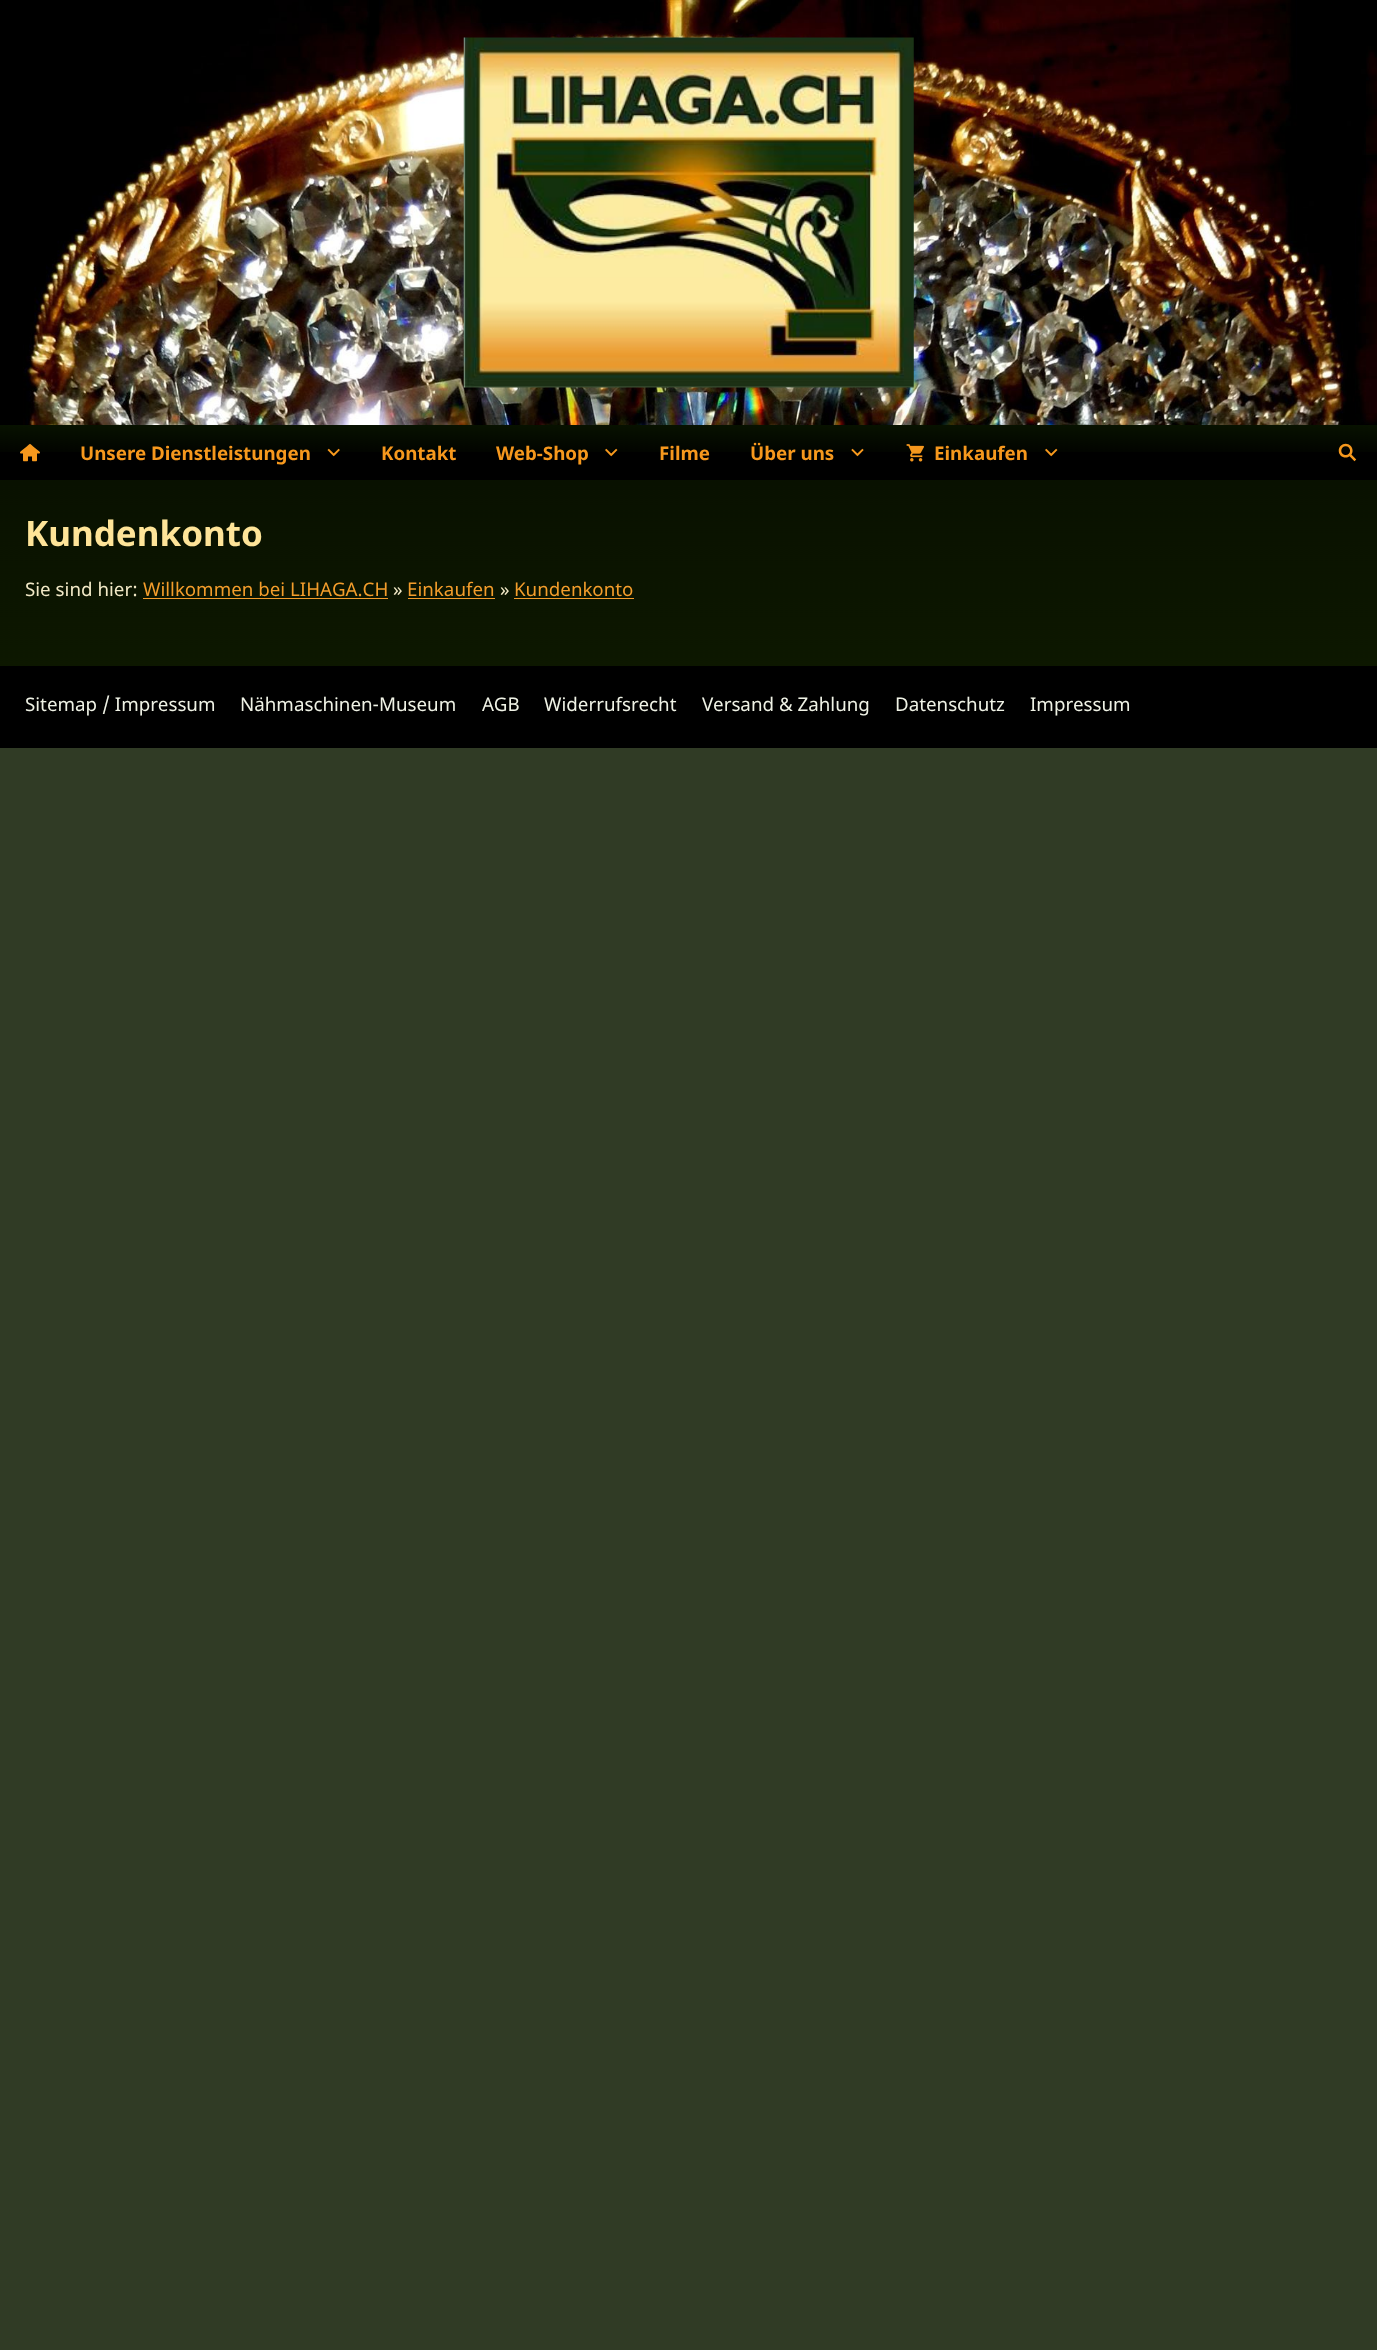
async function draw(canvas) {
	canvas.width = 1377;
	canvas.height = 2350;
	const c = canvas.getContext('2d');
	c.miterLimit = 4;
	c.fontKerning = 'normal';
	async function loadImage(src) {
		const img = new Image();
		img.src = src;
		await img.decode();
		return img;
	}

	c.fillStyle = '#303b25';
	c.fillRect(0, 0, 1377, 2350);
	c.drawImage(await loadImage('img1.png'), 0, 0, 1377, 425);
	c.drawImage(await loadImage('img2.png'), 463, 37, 451, 351);
	c.fillStyle = '#000';
	c.fillRect(0, 452, 1377, 28);
	c.drawImage(await loadImage('img3.png'), 0, 425, 1377, 27);
	c.drawImage(await loadImage('img4.png'), 20, 443, 20, 19);
	c.drawImage(await loadImage('img5.png'), 327, 448, 13, 9);
	c.font = 'bold 18.75px Noto Sans';
	c.fillStyle = '#f6981d';
	c.fillText('Unsere Dienstleistungen', 80, 460);
	c.fillText('Kontakt', 381, 460);
	c.drawImage(await loadImage('img6.png'), 605, 448, 13, 9);
	c.fillText('Web-Shop', 496, 460);
	c.fillText('Filme', 659, 460);
	c.drawImage(await loadImage('img7.png'), 851, 448, 13, 9);
	c.fillText('Über uns', 750, 460);
	c.drawImage(await loadImage('img6.png'), 1045, 448, 13, 9);
	c.drawImage(await loadImage('img8.png'), 906, 444, 18, 18);
	c.fillText('Einkaufen', 934, 460);
	c.drawImage(await loadImage('img9.png'), 1338, 443, 19, 19);
	c.drawImage(await loadImage('img10.png'), 0, 480, 1377, 186);
	c.font = 'bold 35px Noto Sans';
	c.fillStyle = '#fee498';
	c.fillText('Kundenkonto', 25, 546);
	c.font = '18.75px Noto Sans';
	c.fillStyle = '#f2e9c6';
	c.fillText('Sie sind hier:', 25, 596);
	c.fillStyle = '#f39d2b';
	c.fillText('Willkommen bei LIHAGA.CH', 143, 596);
	c.fillRect(143, 598, 245, 1);
	c.fillStyle = '#f2e9c6';
	c.fillText('»', 393, 596);
	c.fillStyle = '#f39d2b';
	c.fillText('Einkaufen', 407, 596);
	c.fillRect(408, 598, 87, 1);
	c.fillStyle = '#f2e9c6';
	c.fillText('»', 500, 596);
	c.fillStyle = '#f39d2b';
	c.fillText('Kundenkonto', 514, 596);
	c.fillRect(514, 598, 120, 1);
	c.fillStyle = '#000';
	c.fillRect(0, 666, 1377, 82);
	c.fillStyle = '#eff2e5';
	for (const [text, x, y] of [
		['Sitemap / Impressum', 25, 711],
		['Nähmaschinen-Museum', 240, 711],
		['AGB', 482, 711],
		['Widerrufsrecht', 544, 711],
		['Versand & Zahlung', 702, 711],
		['Datenschutz', 895, 711],
		['Impressum', 1030, 711],
	]) {
		c.fillText(text, x, y);
	}
}

draw(document.querySelector('canvas'));
